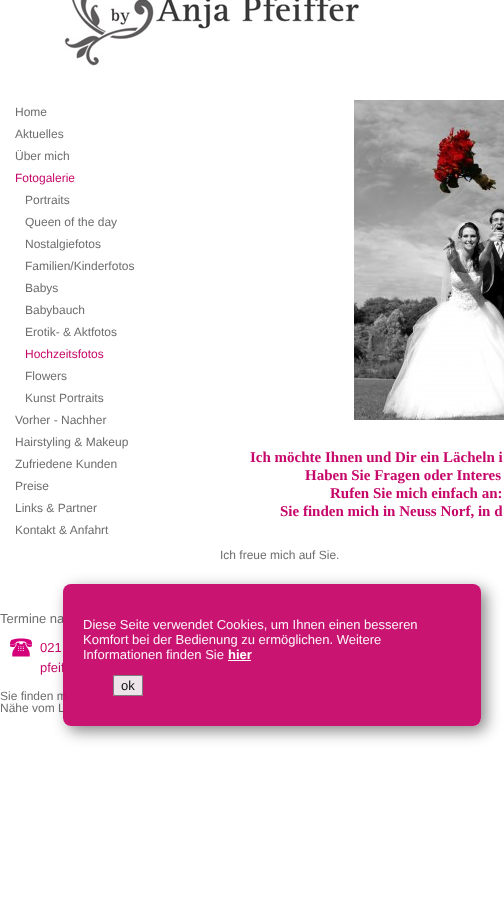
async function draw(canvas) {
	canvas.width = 504;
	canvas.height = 908;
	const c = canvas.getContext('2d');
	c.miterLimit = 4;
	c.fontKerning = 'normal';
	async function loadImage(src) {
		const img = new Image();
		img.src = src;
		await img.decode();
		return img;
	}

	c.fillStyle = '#fff';
	c.fillRect(0, 0, 504, 908);
	c.drawImage(await loadImage('img1.png'), 64, 0, 296, 67);
	c.font = '12px Liberation Sans';
	c.fillStyle = '#6f6d6e';
	for (const [text, x, y] of [
		['Home', 15, 116],
		['Aktuelles', 15, 138],
		['Über mich', 15, 160],
	]) {
		c.fillText(text, x, y);
	}
	c.fillStyle = '#c60769';
	c.fillText('Fotogalerie', 15, 182);
	c.fillStyle = '#6f6d6e';
	for (const [text, x, y] of [
		['Portraits', 25, 204],
		['Queen of the day', 25, 226],
		['Nostalgiefotos', 25, 248],
		['Familien/Kinderfotos', 25, 270],
		['Babys', 25, 292],
		['Babybauch', 25, 314],
		['Erotik- & Aktfotos', 25, 336],
	]) {
		c.fillText(text, x, y);
	}
	c.fillStyle = '#c60769';
	c.fillText('Hochzeitsfotos', 25, 358);
	c.fillStyle = '#6f6d6e';
	for (const [text, x, y] of [
		['Flowers', 25, 380],
		['Kunst Portraits', 25, 402],
		['Vorher - Nachher', 15, 424],
		['Hairstyling & Makeup', 15, 446],
		['Zufriedene Kunden', 15, 468],
		['Preise', 15, 490],
		['Links & Partner', 15, 512],
		['Kontakt & Anfahrt', 15, 534],
	]) {
		c.fillText(text, x, y);
	}
	c.font = '13px Liberation Sans';
	c.fillText('Termine na', 0, 623);
	c.drawImage(await loadImage('img2.png'), 10, 638, 22, 19);
	c.fillStyle = '#c60769';
	c.fillText('021', 40, 652);
	c.fillText('pfeif', 40, 672);
	c.font = '12px Liberation Sans';
	c.fillStyle = '#6f6d6e';
	c.fillText('Sie finden m', 0, 700);
	c.fillText('Nähe vom L', 0, 712);
	c.drawImage(await loadImage('img3.png'), 354, 100, 150, 320);
	c.font = 'bold 15px Liberation Serif';
	c.fillStyle = '#c60769';
	for (const [text, x, y] of [
		['Ich möchte Ihnen und Dir ein Lächeln i', 250, 462],
		['Haben Sie Fragen oder Interes', 305, 480],
		['Rufen Sie mich einfach an:', 330, 498],
		['Sie finden mich in Neuss Norf, in d', 280, 516],
	]) {
		c.fillText(text, x, y);
	}
	c.font = '12px Liberation Sans';
	c.fillStyle = '#6f6d6e';
	c.fillText('Ich freue mich auf Sie.', 220, 559);
	c.save();
	c.beginPath();
	c.moveTo(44, 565);
	c.lineTo(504, 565);
	c.lineTo(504, 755);
	c.lineTo(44, 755);
	c.closePath();
	c.moveTo(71, 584);
	c.lineTo(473, 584);
	c.bezierCurveTo(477.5, 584, 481, 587.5, 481, 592);
	c.lineTo(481, 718);
	c.bezierCurveTo(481, 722.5, 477.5, 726, 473, 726);
	c.lineTo(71, 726);
	c.bezierCurveTo(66.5, 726, 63, 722.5, 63, 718);
	c.lineTo(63, 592);
	c.bezierCurveTo(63, 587.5, 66.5, 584, 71, 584);
	c.closePath();
	c.clip('evenodd');
	c.fillStyle = '#00000078';
	c.filter = 'blur(7.5px)';
	c.beginPath();
	c.roundRect(68, 589, 418, 142, 8);
	c.fill();
	c.filter = 'none';
	c.restore();
	c.fillStyle = '#c60769f2';
	c.beginPath();
	c.roundRect(63, 584, 418, 142, 8);
	c.fill();
	c.font = '13px Liberation Sans';
	c.fillStyle = '#fcf3f8';
	for (const [text, x, y] of [
		['Diese Seite verwendet Cookies, um Ihnen einen besseren', 83, 629],
		['Komfort bei der Bedienung zu ermöglichen. Weitere', 83, 644],
		['Informationen finden Sie', 83, 659],
	]) {
		c.fillText(text, x, y);
	}
	c.font = 'bold 13px Liberation Sans';
	c.fillStyle = '#fff';
	c.fillText('hier', 228, 659);
	c.fillRect(228, 660, 23, 1);
	c.fillStyle = '#efefeff2';
	c.beginPath();
	c.roundRect(113, 675, 30, 21, 2);
	c.fill();
	c.beginPath();
	c.roundRect(113.5, 675.5, 29, 20, 1.5);
	c.strokeStyle = '#767676f2';
	c.stroke();
	c.font = '13px Liberation Sans';
	c.fillStyle = '#0d0d0d';
	c.fillText('ok', 121, 690);
}

draw(document.querySelector('canvas'));
